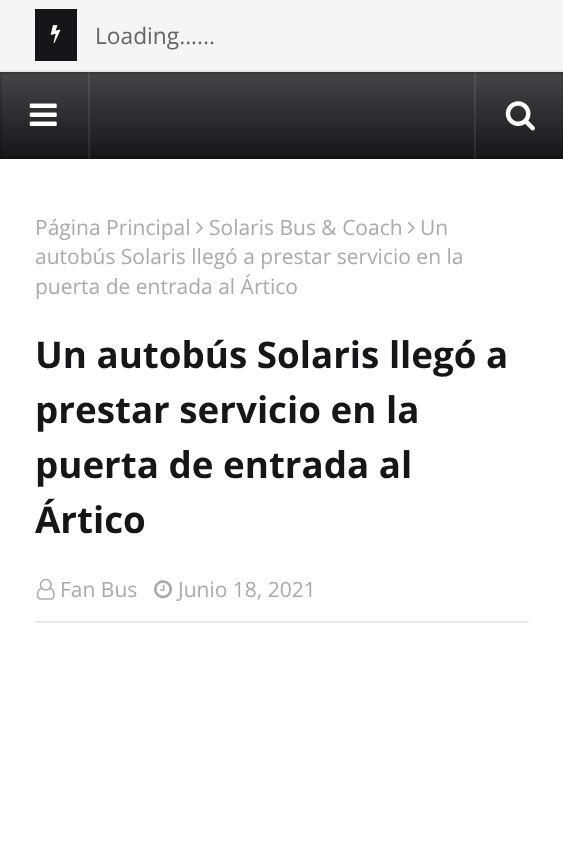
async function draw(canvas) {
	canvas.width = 563;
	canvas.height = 859;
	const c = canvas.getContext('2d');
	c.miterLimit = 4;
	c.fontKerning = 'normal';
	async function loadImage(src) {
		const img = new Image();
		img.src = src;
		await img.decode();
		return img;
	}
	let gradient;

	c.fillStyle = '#fff';
	c.fillRect(0, 0, 563, 859);
	for (const [x, y, w, h, color] of [
		[0, 0, 563, 70, '#f5f5f5'],
		[0, 70, 563, 2, '#e9e9e9'],
		[35, 9, 42, 52, '#161619'],
	]) {
		c.fillStyle = color;
		c.fillRect(x, y, w, h);
	}
	c.drawImage(await loadImage('img1.png'), 50, 25, 11, 18);
	c.font = '22.75px Open Sans';
	c.fillStyle = '#656565';
	c.fillText('Loading......', 95, 44);
	gradient = c.createLinearGradient(282, 72, 282, 159);
	gradient.addColorStop(0, '#454547');
	gradient.addColorStop(1, '#161619');
	c.fillStyle = gradient;
	c.fillRect(0, 72, 563, 87);
	c.strokeStyle = '#00000026';
	c.lineWidth = 2;
	c.strokeRect(1, 73, 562, 85);
	c.fillStyle = '#ffffff14';
	c.fillRect(88, 72, 2, 87);
	c.drawImage(await loadImage('img2.png'), 29, 103, 28, 23);
	c.fillRect(474, 72, 2, 87);
	c.drawImage(await loadImage('img3.png'), 505, 101, 30, 30);
	c.font = '21px Open Sans';
	c.fillStyle = '#aaa';
	c.fillText('Página Principal', 35, 235);
	c.drawImage(await loadImage('img4.png'), 196, 222, 7, 12);
	c.fillText('Solaris Bus & Coach', 209, 235);
	c.drawImage(await loadImage('img5.png'), 408, 222, 7, 12);
	for (const [text, x, y] of [
		['Un', 420, 235],
		['autobús Solaris llegó a prestar servicio en la', 35, 264],
		['puerta de entrada al Ártico', 35, 294],
	]) {
		c.fillText(text, x, y);
	}
	c.font = 'bold 36.75px Open Sans';
	c.fillStyle = '#161619';
	for (const [text, x, y] of [
		['Un autobús Solaris llegó a', 35, 368],
		['prestar servicio en la', 35, 423],
		['puerta de entrada al', 35, 478],
		['Ártico', 35, 533],
	]) {
		c.fillText(text, x, y);
	}
	c.fillStyle = '#eaeaea';
	c.fillRect(35, 621, 494, 2);
	c.drawImage(await loadImage('img6.png'), 36, 578, 19, 22);
	c.font = '21px Open Sans';
	c.fillStyle = '#aaa';
	c.fillText('Fan Bus', 60, 597);
	c.drawImage(await loadImage('img7.png'), 154, 580, 18, 19);
	c.fillText('Junio 18, 2021', 178, 597);
}

draw(document.querySelector('canvas'));
